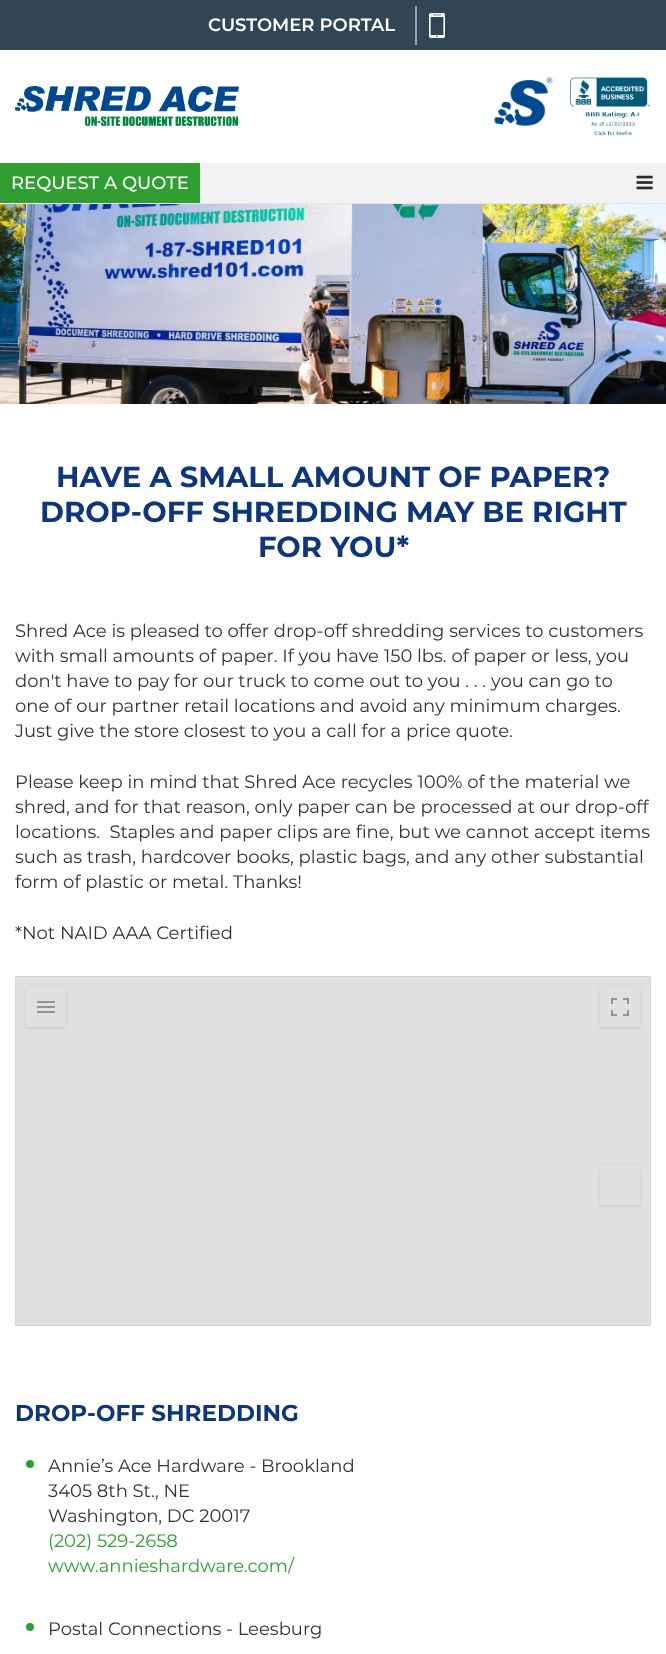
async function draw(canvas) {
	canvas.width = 666;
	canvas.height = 1654;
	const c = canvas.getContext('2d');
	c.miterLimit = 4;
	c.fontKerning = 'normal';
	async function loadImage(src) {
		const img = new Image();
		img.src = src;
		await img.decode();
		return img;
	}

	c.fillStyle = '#fff';
	c.fillRect(0, 0, 666, 1654);
	c.fillStyle = '#e6e6e6';
	c.fillRect(0, 203, 666, 1);
	c.fillStyle = '#314555';
	c.fillRect(0, 0, 666, 50);
	c.font = '600 18px Montserrat';
	c.fillStyle = '#fff';
	c.fillText('CUSTOMER PORTAL', 208, 31);
	c.fillStyle = '#98a2aa';
	c.fillRect(415, 6, 2, 39);
	c.drawImage(await loadImage('img1.png'), 429, 13, 16, 25);
	c.drawImage(await loadImage('img2.png'), 15, 86, 224, 40);
	c.drawImage(await loadImage('img3.png'), 494, 77, 59, 49);
	c.drawImage(await loadImage('img4.png'), 570, 77, 80, 59);
	c.fillStyle = '#f2f2f2';
	c.fillRect(200, 163, 466, 40);
	c.fillStyle = '#319e32';
	c.fillRect(0, 163, 200, 40);
	c.font = '500 18px Montserrat';
	c.fillStyle = '#fff';
	c.fillText('REQUEST A QUOTE', 11, 189);
	c.drawImage(await loadImage('img5.png'), 636, 175, 17, 15);
	c.drawImage(await loadImage('img6.png'), 0, 204, 666, 200);
	c.font = 'bold 29px Montserrat';
	c.fillStyle = '#0d367d';
	for (const [text, x, y] of [
		['HAVE A SMALL AMOUNT OF PAPER?', 56, 487],
		['DROP-OFF SHREDDING MAY BE RIGHT', 40, 522],
		['FOR YOU*', 258, 557],
	]) {
		c.fillText(text, x, y);
	}
	c.font = '18px Montserrat';
	c.fillStyle = '#333';
	for (const [text, x, y] of [
		['Shred Ace is pleased to offer drop-off shredding services to customers', 15, 637],
		['with small amounts of paper. If you have 150 lbs. of paper or less, you', 15, 662],
		['don\'t have to pay for our truck to come out to you . . . you can go to', 15, 687],
		['one of our partner retail locations and avoid any minimum charges.', 15, 712],
		['Just give the store closest to you a call for a price quote.', 15, 737],
		['Please keep in mind that Shred Ace recycles 100% of the material we', 15, 788],
		['shred, and for that reason, only paper can be processed at our drop-off', 15, 813],
		['locations.  Staples and paper clips are fine, but we cannot accept items', 15, 838],
		['such as trash, hardcover books, plastic bags, and any other substantial', 15, 863],
		['form of plastic or metal. Thanks!', 15, 888],
		['*Not NAID AAA Certified', 15, 939],
	]) {
		c.fillText(text, x, y);
	}
	c.fillStyle = '#e0e0e0';
	c.beginPath();
	c.rect(15.5, 976.5, 635, 349);
	c.fill();
	c.strokeStyle = '#d3d3d3';
	c.stroke();
	c.save();
	c.beginPath();
	c.moveTo(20, 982);
	c.lineTo(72, 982);
	c.lineTo(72, 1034);
	c.lineTo(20, 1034);
	c.closePath();
	c.moveTo(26, 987);
	c.lineTo(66, 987);
	c.lineTo(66, 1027);
	c.lineTo(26, 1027);
	c.closePath();
	c.clip('evenodd');
	c.fillStyle = '#6060604d';
	c.filter = 'blur(2px)';
	c.beginPath();
	c.rect(27, 989, 38, 38);
	c.fill();
	c.filter = 'none';
	c.restore();
	c.drawImage(await loadImage('img7.png'), 37, 1001, 18, 12);
	c.save();
	c.beginPath();
	c.moveTo(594, 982);
	c.lineTo(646, 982);
	c.lineTo(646, 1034);
	c.lineTo(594, 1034);
	c.closePath();
	c.moveTo(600, 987);
	c.lineTo(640, 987);
	c.lineTo(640, 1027);
	c.lineTo(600, 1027);
	c.closePath();
	c.clip('evenodd');
	c.fillStyle = '#6060604d';
	c.filter = 'blur(2px)';
	c.beginPath();
	c.rect(601, 989, 38, 38);
	c.fill();
	c.filter = 'none';
	c.restore();
	c.drawImage(await loadImage('img8.png'), 611, 998, 18, 18);
	c.save();
	c.beginPath();
	c.moveTo(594, 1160);
	c.lineTo(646, 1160);
	c.lineTo(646, 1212);
	c.lineTo(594, 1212);
	c.closePath();
	c.moveTo(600, 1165);
	c.lineTo(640, 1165);
	c.lineTo(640, 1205);
	c.lineTo(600, 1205);
	c.closePath();
	c.clip('evenodd');
	c.fillStyle = '#6060604d';
	c.filter = 'blur(2px)';
	c.beginPath();
	c.rect(601, 1167, 38, 38);
	c.fill();
	c.filter = 'none';
	c.restore();
	c.font = 'bold 23px Montserrat';
	c.fillStyle = '#0d367d';
	c.fillText('DROP-OFF SHREDDING', 15, 1421);
	c.fillStyle = '#319e32';
	c.beginPath();
	c.arc(30, 1464, 4, 0, 2 * Math.PI);
	c.fill();
	c.font = '18px Montserrat';
	c.fillStyle = '#333';
	for (const [text, x, y] of [
		['Annie’s Ace Hardware - Brookland', 48, 1472],
		['3405 8th St., NE', 48, 1497],
		['Washington, DC 20017', 48, 1522],
	]) {
		c.fillText(text, x, y);
	}
	c.fillStyle = '#319e32';
	c.fillText('(202) 529-2658', 48, 1547);
	c.fillText('www.annieshardware.com/', 48, 1572);
	c.beginPath();
	c.arc(30, 1627, 4, 0, 2 * Math.PI);
	c.fill();
	c.fillStyle = '#333';
	c.fillText('Postal Connections - Leesburg', 48, 1635);
}

draw(document.querySelector('canvas'));
